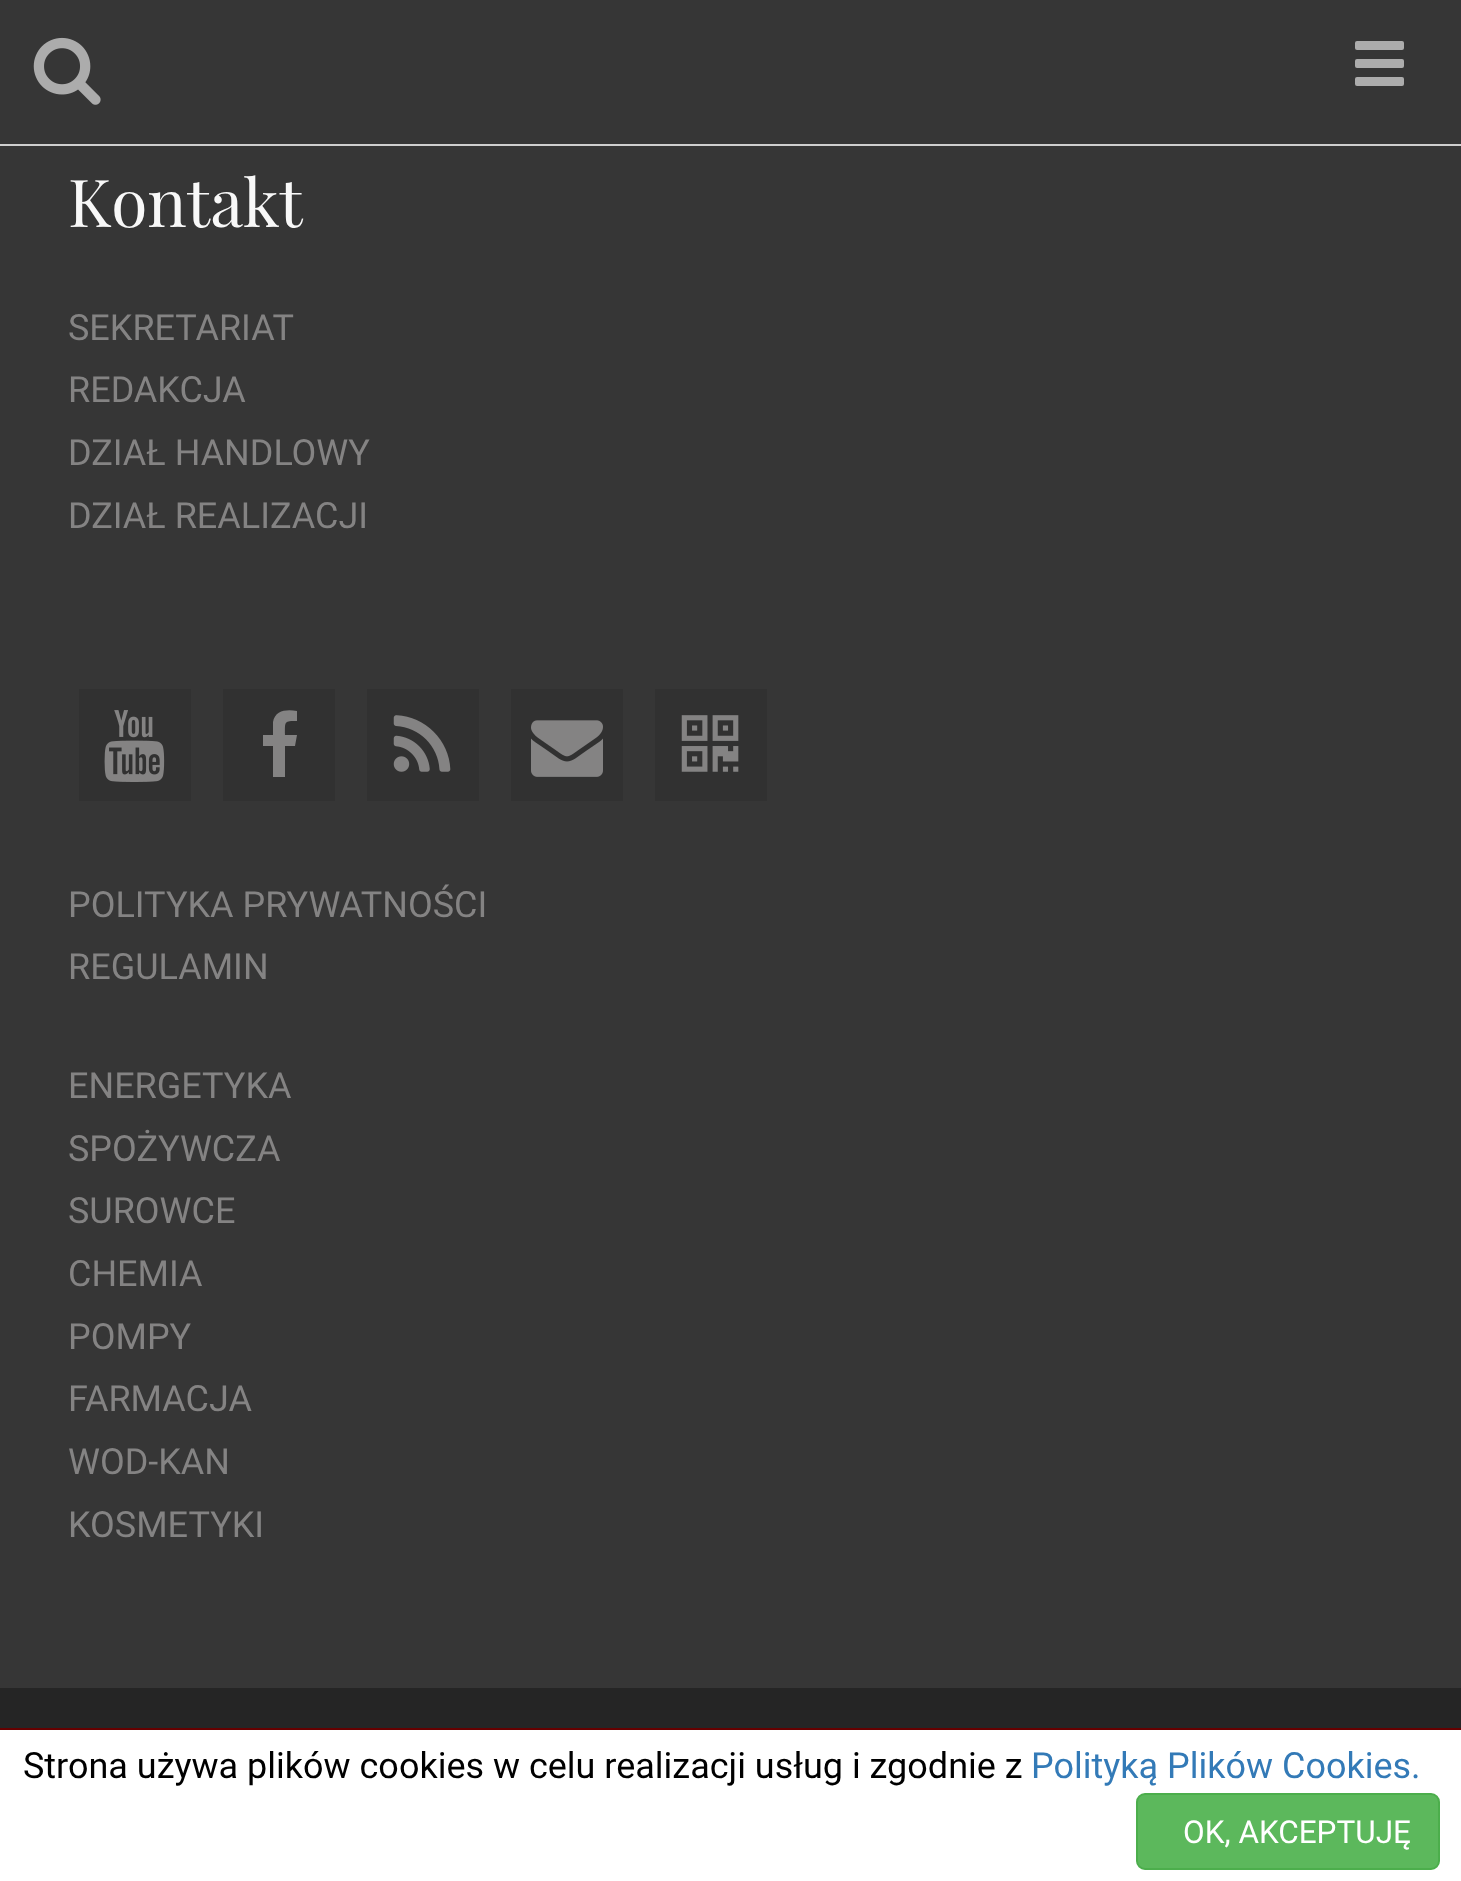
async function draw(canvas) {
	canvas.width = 1461;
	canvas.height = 1881;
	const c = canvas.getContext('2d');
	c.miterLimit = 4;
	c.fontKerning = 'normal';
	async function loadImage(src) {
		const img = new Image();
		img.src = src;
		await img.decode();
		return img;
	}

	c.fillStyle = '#363636';
	c.fillRect(0, 0, 1461, 1881);
	c.fillStyle = '#cfcfcf';
	c.fillRect(0, 144, 1461, 2);
	c.drawImage(await loadImage('img1.png'), 33, 37, 68, 68);
	c.fillStyle = '#acacac';
	c.beginPath();
	c.roundRect(1355, 41, 49, 9, 2);
	c.fill();
	c.beginPath();
	c.roundRect(1355, 59, 49, 9, 2);
	c.fill();
	c.beginPath();
	c.roundRect(1355, 77, 49, 9, 2);
	c.fill();
	c.font = '66px Playfair Display';
	c.fillStyle = '#f8f8f8';
	c.fillText('Kontakt', 68, 227);
	c.font = '36px Roboto';
	c.fillStyle = '#848383';
	for (const [text, x, y] of [
		['SEKRETARIAT', 68, 340],
		['REDAKCJA', 68, 402],
		['DZIAŁ HANDLOWY', 68, 465],
		['DZIAŁ REALIZACJI', 68, 528],
	]) {
		c.fillText(text, x, y);
	}
	c.fillStyle = '#313131';
	c.fillRect(79, 689, 112, 112);
	c.drawImage(await loadImage('img2.png'), 104, 710, 61, 72);
	c.fillRect(223, 689, 112, 112);
	c.fillStyle = '#848383';
	c.beginPath();
	c.moveTo(297, 711);
	c.lineTo(297, 721);
	c.bezierCurveTo(284, 721, 285, 721, 285, 735);
	c.lineTo(297, 735);
	c.lineTo(295, 746);
	c.lineTo(285, 746);
	c.lineTo(285, 777);
	c.lineTo(273, 777);
	c.lineTo(273, 746);
	c.lineTo(263, 746);
	c.lineTo(263, 735);
	c.lineTo(273, 735);
	c.lineTo(273, 722);
	c.bezierCurveTo(275, 710, 287, 709, 297, 711);
	c.closePath();
	c.fill();
	c.fillStyle = '#313131';
	c.fillRect(367, 689, 112, 112);
	c.drawImage(await loadImage('img3.png'), 393, 715, 58, 57);
	c.fillRect(511, 689, 112, 112);
	c.drawImage(await loadImage('img4.png'), 531, 720, 72, 57);
	c.fillRect(655, 689, 112, 112);
	c.drawImage(await loadImage('img5.png'), 681, 715, 58, 57);
	c.fillStyle = '#848383';
	for (const [text, x, y] of [
		['POLITYKA PRYWATNOŚCI', 68, 917],
		['REGULAMIN', 68, 979],
		['ENERGETYKA', 68, 1098],
		['SPOŻYWCZA', 68, 1161],
		['SUROWCE', 68, 1223],
		['CHEMIA', 68, 1286],
		['POMPY', 68, 1349],
		['FARMACJA', 68, 1411],
		['WOD-KAN', 68, 1474],
		['KOSMETYKI', 68, 1537],
	]) {
		c.fillText(text, x, y);
	}
	for (const [x, y, w, h, color] of [
		[0, 1688, 1461, 40, '#252525'],
		[0, 1730, 1461, 151, '#fff'],
		[0, 1728, 1461, 2, '#600'],
	]) {
		c.fillStyle = color;
		c.fillRect(x, y, w, h);
	}
	c.fillStyle = '#000';
	c.fillText('Strona używa plików cookies w celu realizacji usług i zgodnie z', 23, 1778);
	c.fillStyle = '#337ab7';
	c.fillText('Polityką Plików Cookies.', 1031, 1778);
	c.fillStyle = '#5cb85c';
	c.beginPath();
	c.roundRect(1137, 1794, 302, 75, 8);
	c.fill();
	c.strokeStyle = '#4cae4c';
	c.lineWidth = 2;
	c.stroke();
	c.font = '31.5px Roboto';
	c.fillStyle = '#fff';
	c.fillText('OK, AKCEPTUJĘ', 1183, 1843);
}

draw(document.querySelector('canvas'));
